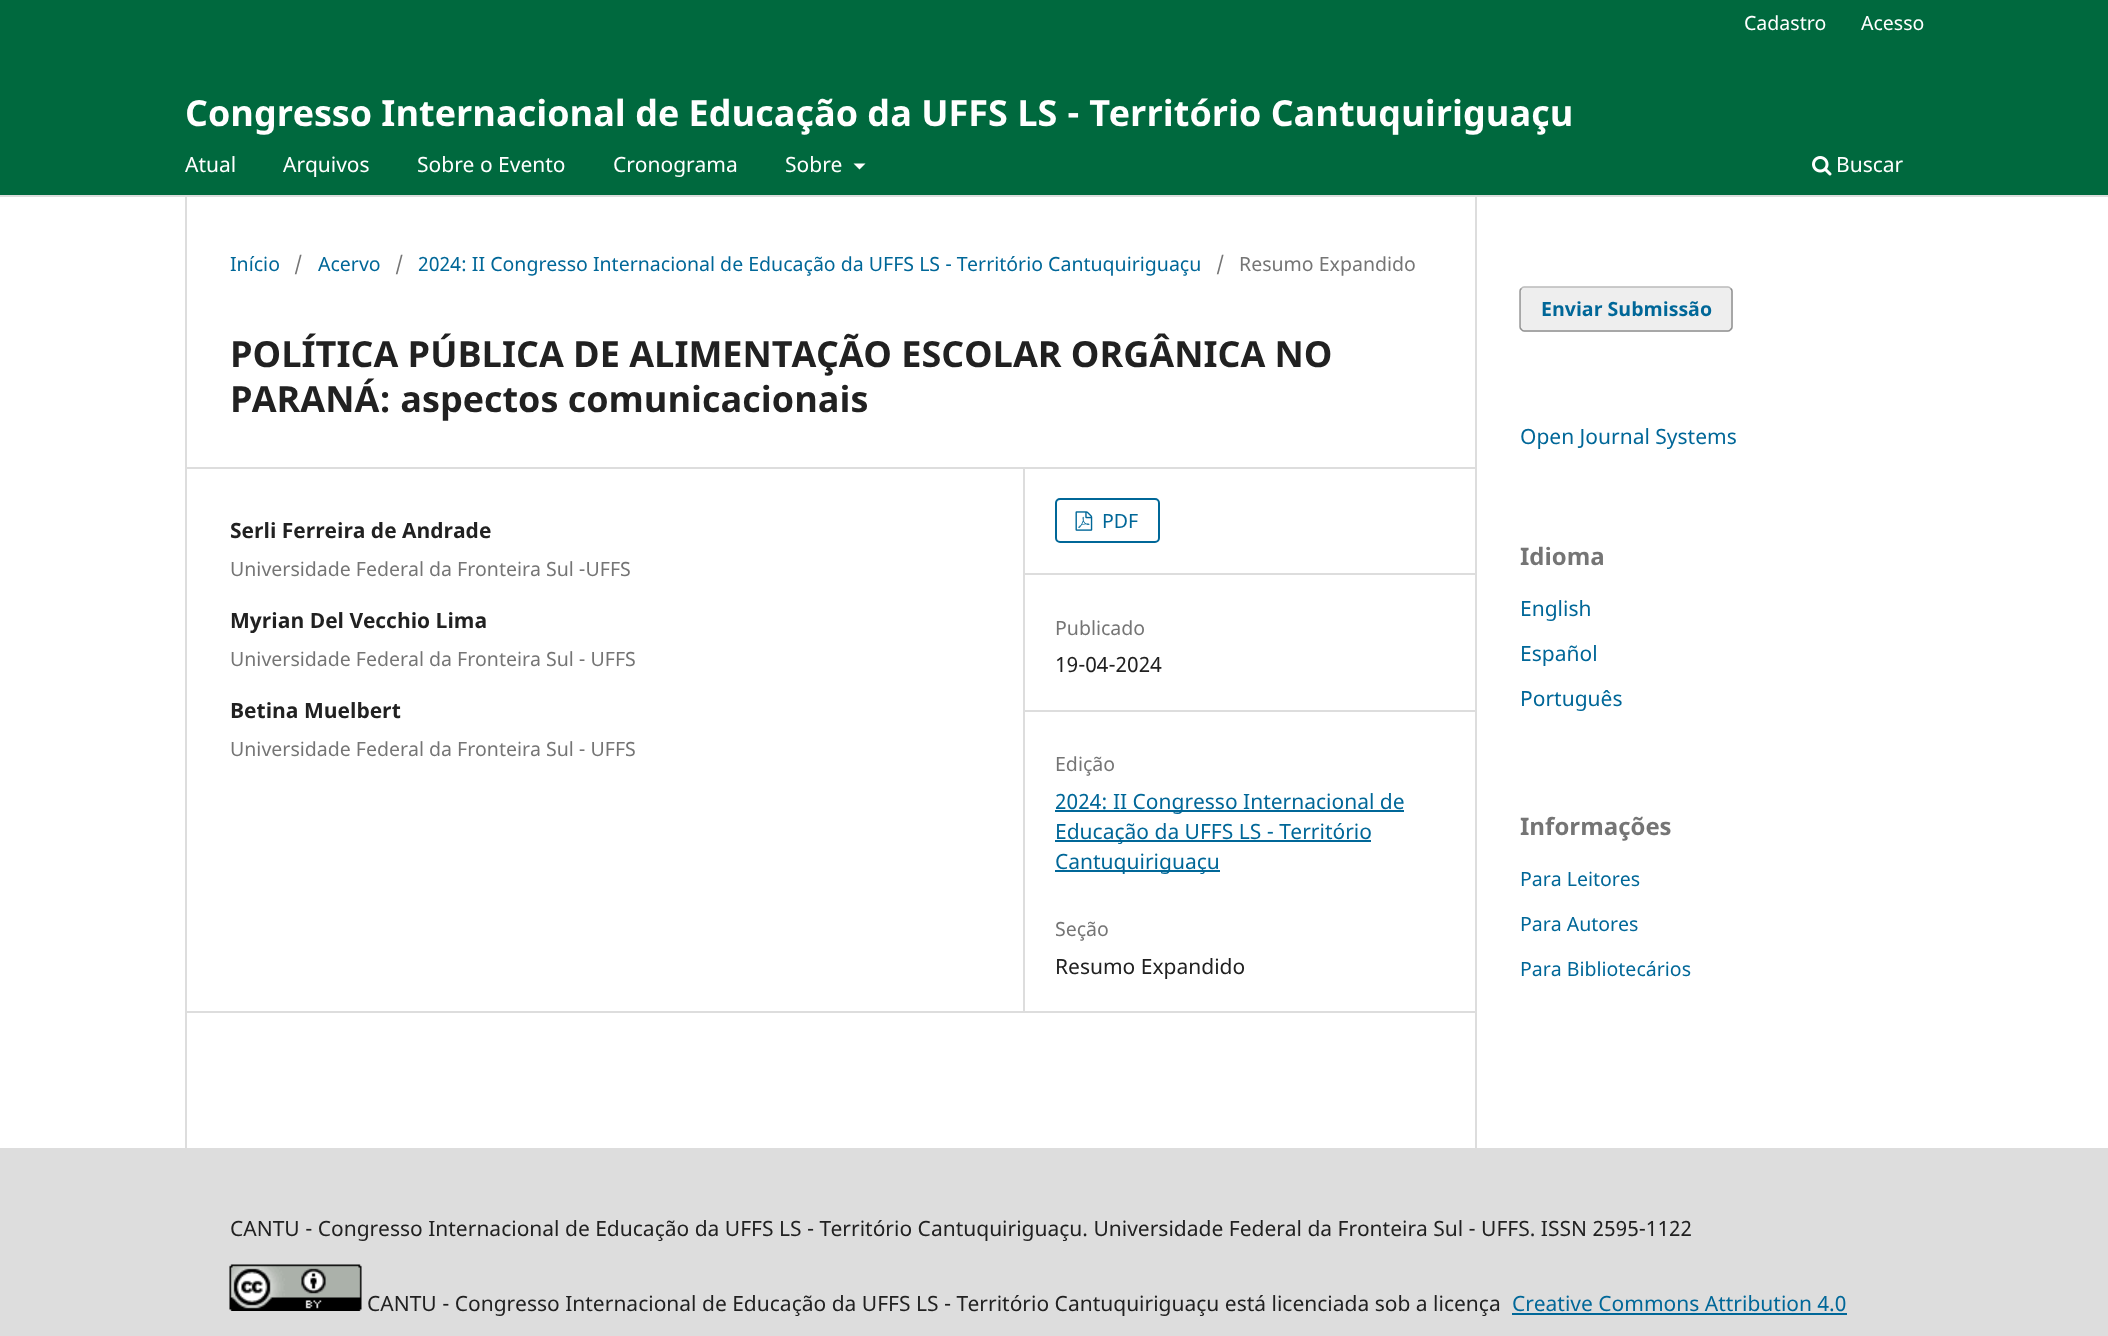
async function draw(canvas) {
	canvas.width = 2108;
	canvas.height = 1336;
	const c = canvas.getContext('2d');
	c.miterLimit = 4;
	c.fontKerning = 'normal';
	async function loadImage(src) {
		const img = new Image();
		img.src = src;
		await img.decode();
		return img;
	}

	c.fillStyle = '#fff';
	c.fillRect(0, 0, 2108, 1336);
	c.fillStyle = '#00693e';
	c.fillRect(0, 0, 2108, 195);
	c.fillStyle = '#ddd';
	c.fillRect(0, 195, 2108, 2);
	c.font = '19.55px Noto Sans';
	c.fillStyle = '#fff';
	c.fillText('Cadastro', 1744, 30);
	c.fillText('Acesso', 1861, 30);
	c.font = '21px Noto Sans';
	for (const [text, x, y] of [
		['Atual', 185, 172],
		['Arquivos', 283, 172],
		['Sobre o Evento', 417, 172],
		['Cronograma', 613, 172],
		['Sobre', 785, 172],
	]) {
		c.fillText(text, x, y);
	}
	c.beginPath();
	c.moveTo(853.5, 163.5);
	c.lineTo(865.5, 163.5);
	c.lineTo(859.5, 169.5);
	c.closePath();
	c.fill();
	c.drawImage(await loadImage('img1.png'), 1812, 156, 20, 20);
	c.fillText('Buscar', 1836, 172);
	c.font = 'bold 36px Noto Sans';
	c.fillText('Congresso Internacional de Educação da UFFS LS - Território Cantuquiriguaçu', 185, 126);
	for (const [x, y, w, h, color] of [
		[185, 467, 1290, 2, '#ddd'],
		[185, 1011, 1290, 2, '#ddd'],
		[185, 197, 2, 951, '#ddd'],
	]) {
		c.fillStyle = color;
		c.fillRect(x, y, w, h);
	}
	c.font = '19.55px Noto Sans';
	c.fillStyle = '#006798';
	c.fillText('Início', 230, 271);
	c.fillStyle = '#757575';
	c.fillText('/', 294, 271);
	c.fillStyle = '#006798';
	c.fillText('Acervo', 318, 271);
	c.fillStyle = '#757575';
	c.fillText('/', 395, 271);
	c.fillStyle = '#006798';
	c.fillText('2024: II Congresso Internacional de Educação da UFFS LS - Território Cantuquiriguaçu', 418, 271);
	c.fillStyle = '#757575';
	c.fillText('/', 1216, 271);
	c.fillText('Resumo Expandido', 1239, 271);
	c.font = 'bold 36px Noto Sans';
	c.fillStyle = '#212121';
	c.fillText('POLÍTICA PÚBLICA DE ALIMENTAÇÃO ESCOLAR ORGÂNICA NO', 230, 367);
	c.fillText('PARANÁ: aspectos comunicacionais', 230, 412);
	c.font = 'bold 21px Noto Sans';
	c.fillText('Serli Ferreira de Andrade', 230, 538);
	c.font = '19.55px Noto Sans';
	c.fillStyle = '#757575';
	c.fillText('Universidade Federal da Fronteira Sul -UFFS', 230, 576);
	c.font = 'bold 21px Noto Sans';
	c.fillStyle = '#212121';
	c.fillText('Myrian Del Vecchio Lima', 230, 628);
	c.font = '19.55px Noto Sans';
	c.fillStyle = '#757575';
	c.fillText('Universidade Federal da Fronteira Sul - UFFS', 230, 666);
	c.font = 'bold 21px Noto Sans';
	c.fillStyle = '#212121';
	c.fillText('Betina Muelbert', 230, 718);
	c.font = '19.55px Noto Sans';
	c.fillStyle = '#757575';
	c.fillText('Universidade Federal da Fronteira Sul - UFFS', 230, 756);
	c.fillStyle = '#ddd';
	c.fillRect(1023, 468, 2, 543);
	c.fillRect(1025, 573, 450, 2);
	c.beginPath();
	c.roundRect(1056, 499, 103, 43, 4);
	c.strokeStyle = '#006798';
	c.lineWidth = 2;
	c.stroke();
	c.drawImage(await loadImage('img2.png'), 1075, 511, 18, 20);
	c.fillStyle = '#006798';
	c.fillText('PDF', 1102, 528);
	c.fillStyle = '#ddd';
	c.fillRect(1025, 710, 450, 2);
	c.fillStyle = '#757575';
	c.fillText('Publicado', 1055, 635);
	c.font = '21px Noto Sans';
	c.fillStyle = '#212121';
	c.fillText('19-04-2024', 1055, 672);
	c.font = '19.55px Noto Sans';
	c.fillStyle = '#757575';
	c.fillText('Edição', 1055, 771);
	c.fillStyle = '#006798';
	c.fillRect(1055, 810, 349, 2);
	c.font = '21px Noto Sans';
	c.fillText('2024: II Congresso Internacional de', 1055, 809);
	c.fillRect(1055, 840, 316, 2);
	c.fillText('Educação da UFFS LS - Território', 1055, 839);
	c.fillRect(1055, 870, 165, 2);
	c.fillText('Cantuquiriguaçu', 1055, 869);
	c.font = '19.55px Noto Sans';
	c.fillStyle = '#757575';
	c.fillText('Seção', 1055, 936);
	c.font = '21px Noto Sans';
	c.fillStyle = '#212121';
	c.fillText('Resumo Expandido', 1055, 974);
	c.fillStyle = '#ddd';
	c.fillRect(1475, 197, 2, 951);
	c.fillStyle = '#eee';
	c.beginPath();
	c.roundRect(1520, 287, 213, 45, 5);
	c.fill();
	c.beginPath();
	c.moveTo(1521.5, 288.5);
	c.bezierCurveTo(1522, 287.5, 1523, 287, 1524, 287);
	c.lineTo(1728, 287);
	c.bezierCurveTo(1729, 287, 1730, 287.5, 1730.5, 288.5);
	c.strokeStyle = '#bbb';
	c.lineWidth = 1.5;
	c.stroke();
	c.beginPath();
	c.moveTo(1730.5, 288.5);
	c.bezierCurveTo(1731.5, 289, 1732, 290, 1732, 291);
	c.lineTo(1732, 327);
	c.bezierCurveTo(1732, 328, 1731.5, 329, 1730.5, 329.5);
	c.bezierCurveTo(1730, 330.5, 1729, 331, 1728, 331);
	c.lineTo(1524, 331);
	c.bezierCurveTo(1523, 331, 1522, 330.5, 1521.5, 329.5);
	c.bezierCurveTo(1520.5, 329, 1520, 328, 1520, 327);
	c.lineTo(1520, 291);
	c.bezierCurveTo(1520, 290, 1520.5, 289, 1521.5, 288.5);
	c.strokeStyle = '#00000066';
	c.stroke();
	c.font = 'bold 19.55px Noto Sans';
	c.fillStyle = '#006798';
	c.fillText('Enviar Submissão', 1541, 316);
	c.font = '21px Noto Sans';
	c.fillText('Open Journal Systems', 1520, 444);
	c.font = 'bold 24px Noto Sans';
	c.fillStyle = '#757575';
	c.fillText('Idioma', 1520, 565);
	c.font = '21px Noto Sans';
	c.fillStyle = '#006798';
	for (const [text, x, y] of [
		['English', 1520, 616],
		['Español', 1520, 661],
		['Português', 1520, 706],
	]) {
		c.fillText(text, x, y);
	}
	c.font = 'bold 24px Noto Sans';
	c.fillStyle = '#757575';
	c.fillText('Informações', 1520, 835);
	c.font = '19.55px Noto Sans';
	c.fillStyle = '#006798';
	for (const [text, x, y] of [
		['Para Leitores', 1520, 886],
		['Para Autores', 1520, 931],
		['Para Bibliotecários', 1520, 976],
	]) {
		c.fillText(text, x, y);
	}
	c.fillStyle = '#ddd';
	c.fillRect(0, 1148, 2108, 188);
	c.font = '21px Noto Sans';
	c.fillStyle = '#212121';
	c.fillText('CANTU - Congresso Internacional de Educação da UFFS LS - Território Cantuquiriguaçu. Universidade Federal da Fronteira Sul - UFFS. ISSN 2595-1122', 230, 1236);
	c.drawImage(await loadImage('img3.png'), 229, 1264, 133, 47);
	c.fillText('CANTU - Congresso Internacional de Educação da UFFS LS - Território Cantuquiriguaçu está licenciada sob a licença', 367, 1311);
	c.fillStyle = '#006798';
	c.fillText('Creative Commons Attribution 4.0', 1512, 1311);
	c.fillRect(1512, 1313, 335, 2);
}

draw(document.querySelector('canvas'));
